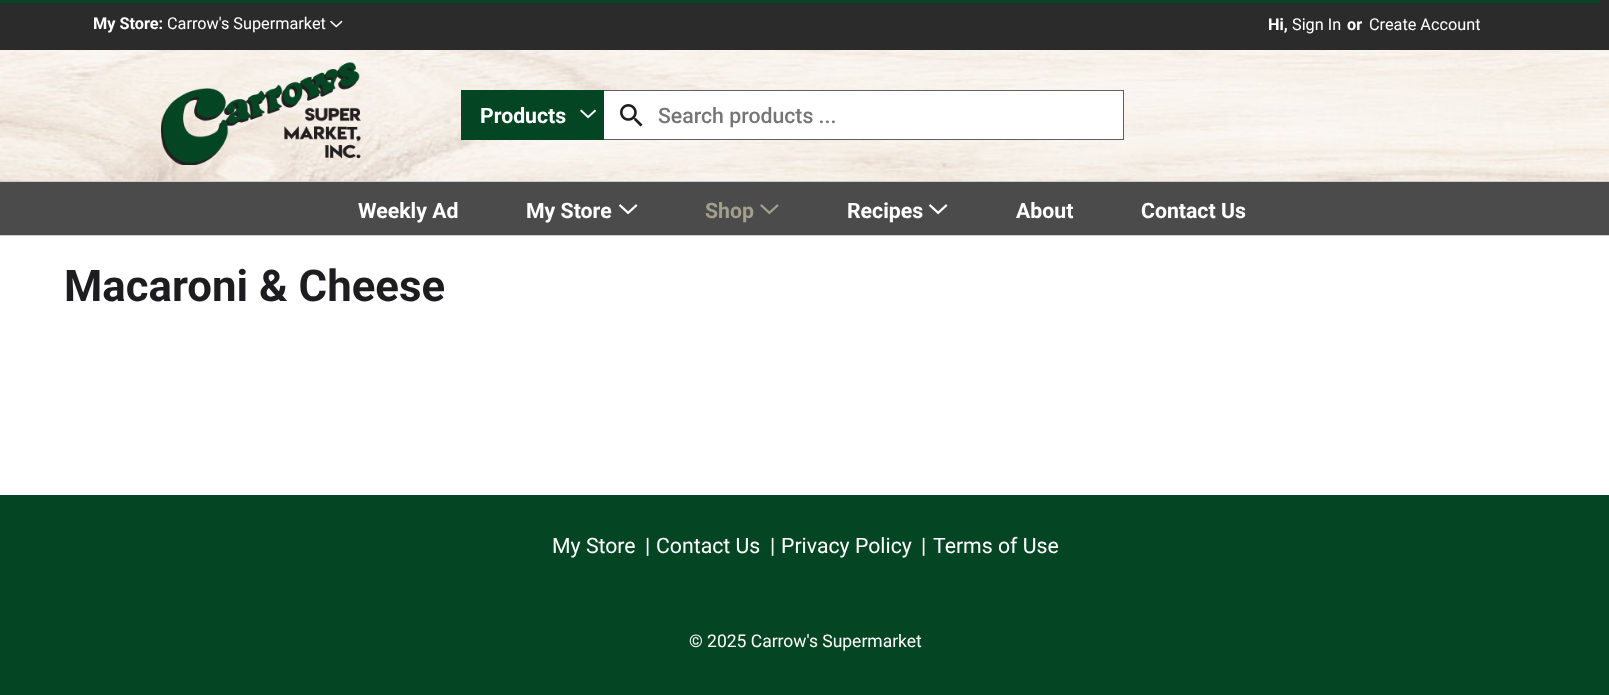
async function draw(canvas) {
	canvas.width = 1609;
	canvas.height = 695;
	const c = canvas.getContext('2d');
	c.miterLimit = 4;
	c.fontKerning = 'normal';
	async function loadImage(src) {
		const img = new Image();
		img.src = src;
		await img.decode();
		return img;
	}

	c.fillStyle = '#fff';
	c.fillRect(0, 0, 1609, 695);
	c.fillStyle = '#2b2b2b';
	c.fillRect(0, 0, 1609, 50);
	c.fillStyle = '#044623';
	c.fillRect(0, 0, 1600, 3);
	c.font = 'bold 16.25px Roboto';
	c.fillStyle = '#fff';
	c.fillText('My Store:', 93, 29);
	c.font = '16.25px Roboto';
	c.fillText('Carrow\'s Supermarket', 167, 29);
	c.drawImage(await loadImage('img1.png'), 330, 20, 13, 8);
	c.font = 'bold 16.25px Roboto';
	c.fillText('Hi,', 1268, 30);
	c.font = '16.25px Roboto';
	c.fillText('Sign In', 1292, 30);
	c.font = 'bold 16.25px Roboto';
	c.fillText('or', 1347, 30);
	c.font = '16.25px Roboto';
	c.fillText('Create Account', 1369, 30);
	c.drawImage(await loadImage('img2.png'), 0, 50, 1609, 131);
	c.drawImage(await loadImage('img3.png'), 161, 62, 200, 103);
	for (const [x, y, w, h, color] of [
		[603, 90, 521, 1, '#606062'],
		[1123, 90, 1, 50, '#606062'],
		[603, 139, 521, 1, '#606062'],
		[461, 90, 143, 50, '#044623'],
	]) {
		c.fillStyle = color;
		c.fillRect(x, y, w, h);
	}
	c.font = 'bold 21.25px Roboto';
	c.fillStyle = '#fff';
	c.fillText('Products', 480, 123);
	c.drawImage(await loadImage('img4.png'), 580, 109, 17, 10);
	c.fillRect(604, 91, 519, 48);
	c.drawImage(await loadImage('img5.png'), 620, 104, 23, 23);
	c.font = '500 21.25px Roboto';
	c.fillStyle = '#757575';
	c.fillText('Search products ...', 658, 123);
	for (const [x, y, w, h, color] of [
		[0, 182, 1609, 53, '#4b4b4b'],
		[0, 181, 1609, 1, '#ccc'],
		[0, 235, 1609, 1, '#ccc'],
	]) {
		c.fillStyle = color;
		c.fillRect(x, y, w, h);
	}
	c.font = 'bold 21.25px Roboto';
	c.fillStyle = '#fff';
	c.fillText('Weekly Ad', 358, 218);
	c.fillText('My Store', 526, 218);
	c.drawImage(await loadImage('img6.png'), 618, 204, 20, 11);
	c.fillStyle = '#a39f8d';
	c.fillText('Shop', 705, 218);
	c.drawImage(await loadImage('img7.png'), 760, 204, 19, 11);
	c.fillStyle = '#fff';
	c.fillText('Recipes', 847, 218);
	c.drawImage(await loadImage('img6.png'), 928, 204, 20, 11);
	c.fillText('About', 1016, 218);
	c.fillText('Contact Us', 1141, 218);
	c.font = 'bold 43.75px Roboto';
	c.fillStyle = '#1d1d1f';
	c.fillText('Macaroni & Cheese', 64, 301);
	c.fillStyle = '#044623';
	c.fillRect(0, 495, 1609, 200);
	c.font = '21.25px Roboto';
	c.fillStyle = '#fff';
	for (const [text, x, y] of [
		['My Store', 552, 553],
		['|', 645, 553],
		['Contact Us', 656, 553],
		['|', 770, 553],
		['Privacy Policy', 781, 553],
		['|', 921, 553],
		['Terms of Use', 933, 553],
	]) {
		c.fillText(text, x, y);
	}
	c.font = '17.5px Roboto';
	c.fillText('© 2025 Carrow\'s Supermarket', 689, 647);
}

draw(document.querySelector('canvas'));
